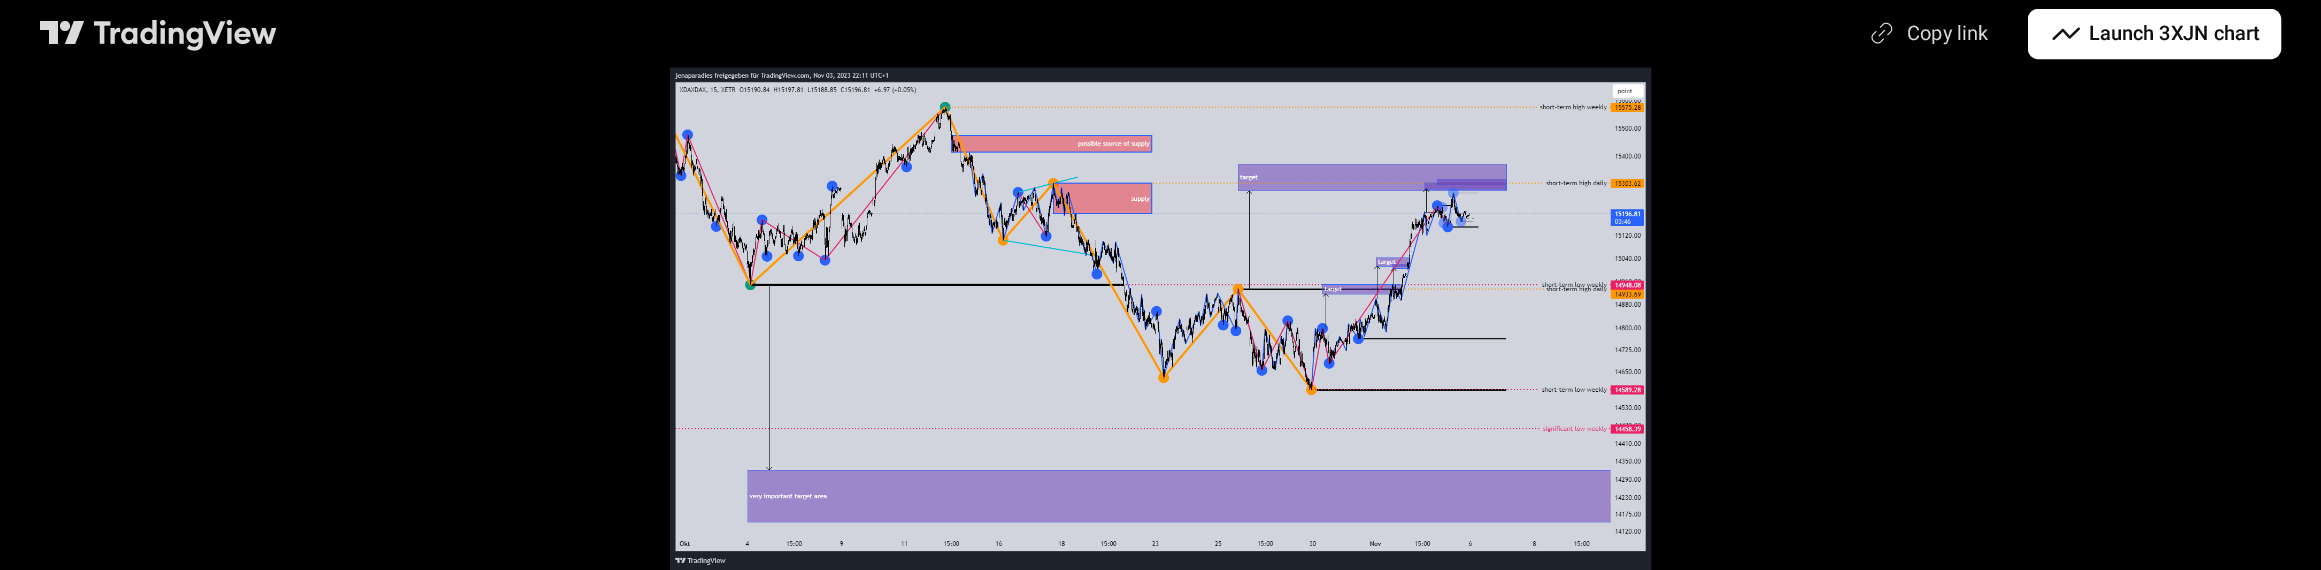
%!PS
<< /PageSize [2321 570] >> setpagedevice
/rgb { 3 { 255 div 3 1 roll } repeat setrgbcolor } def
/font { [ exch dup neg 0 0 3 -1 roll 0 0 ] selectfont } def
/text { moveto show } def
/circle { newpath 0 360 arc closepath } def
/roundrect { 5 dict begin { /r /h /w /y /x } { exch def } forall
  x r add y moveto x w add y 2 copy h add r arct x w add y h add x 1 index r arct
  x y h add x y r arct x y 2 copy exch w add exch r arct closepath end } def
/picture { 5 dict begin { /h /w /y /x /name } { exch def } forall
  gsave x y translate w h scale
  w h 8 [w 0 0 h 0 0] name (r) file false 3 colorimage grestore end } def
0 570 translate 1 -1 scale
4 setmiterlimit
0 0 0 rgb
0 0 2321 570 rectfill
219 219 219 rgb
58 44 moveto -9 0 rlineto 0 -14 rlineto -9 0 rlineto 0 -9 rlineto 18 0 rlineto closepath 75 44 moveto -10 0 rlineto 9 -23 rlineto 10 0 rlineto closepath fill
65 26 5 circle fill
(img_01.rgb) 94 19 183 32 picture
(img_02.rgb) 1871 22 22 22 picture
255 255 255 rgb
2028.5 9.5 252 49 9.5 roundrect gsave fill grestore
stroke
(img_03.rgb) 2052 27 28 13 picture
(img_04.rgb) 670 67 982 503 picture
/Roboto-Regular 20 font
219 219 219 rgb
(Copy link) 1907 40 text
/Roboto-Medium 20 font
15 15 15 rgb
(Launch 3XJN chart) 2089 40 text
showpage
